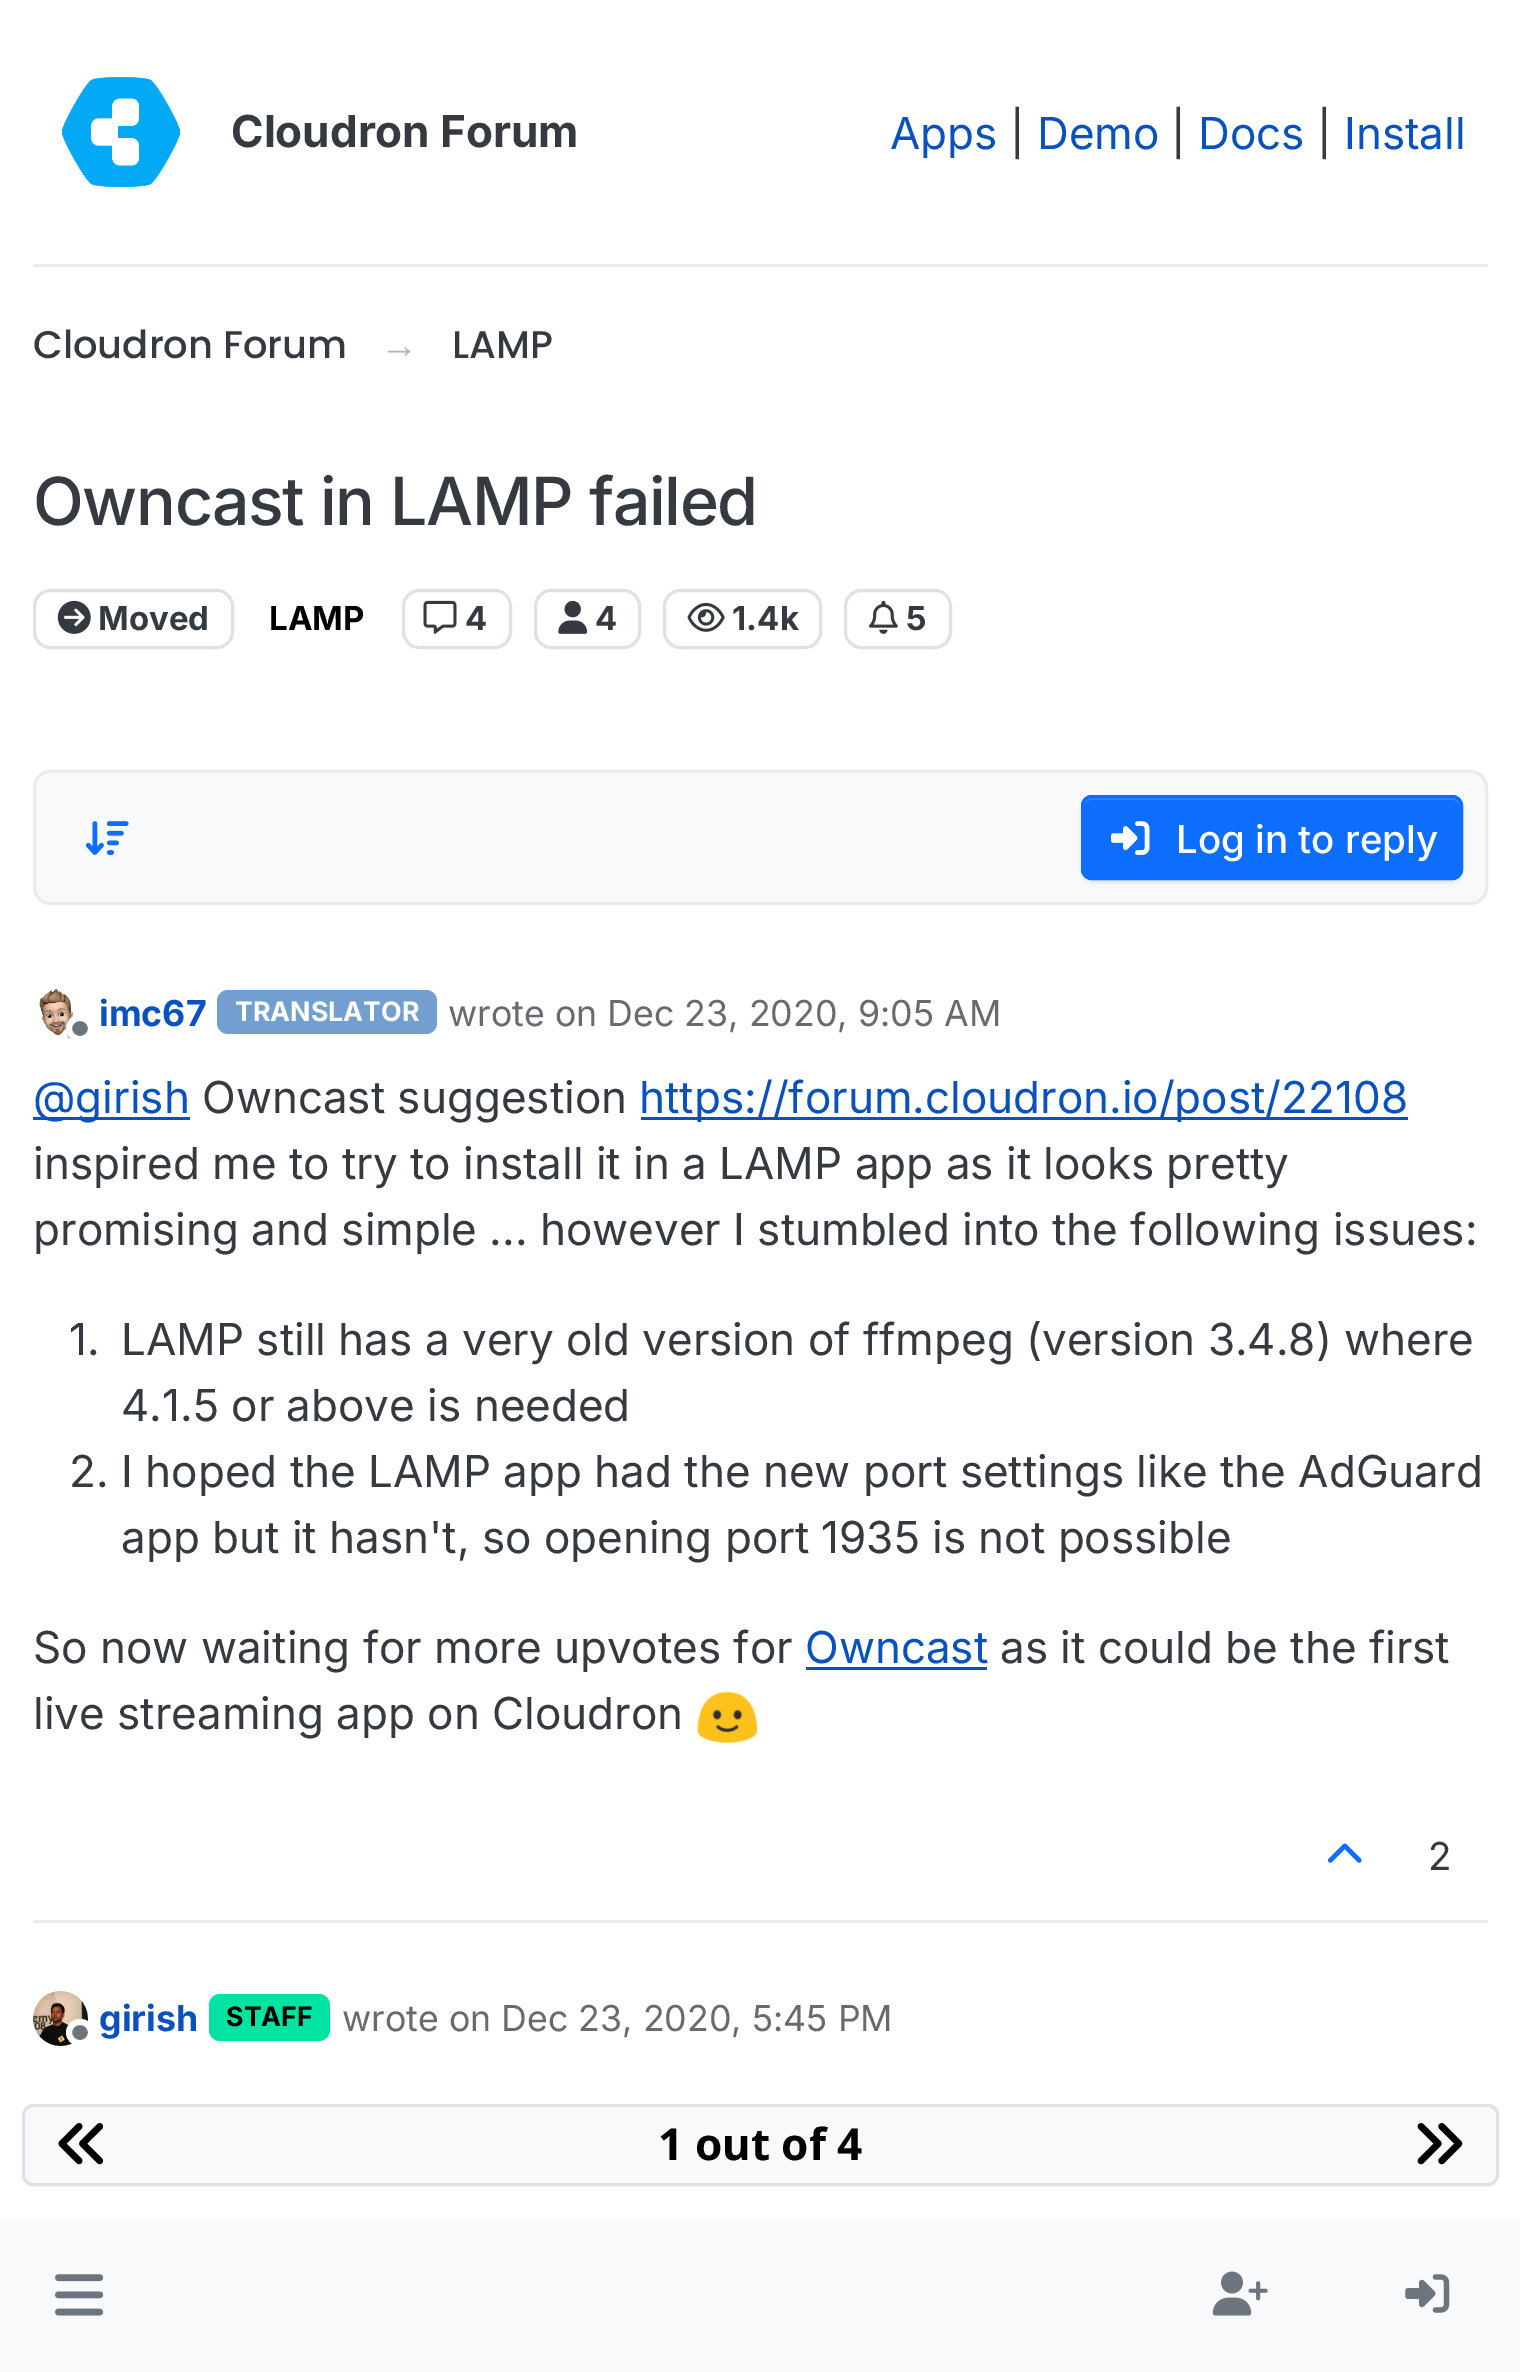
%!PS
<< /PageSize [1520 2372] /PageUsesTransparency true >> setpagedevice
/rgb { 3 { 255 div 3 1 roll } repeat setrgbcolor } def
/font { [ exch dup neg 0 0 3 -1 roll 0 0 ] selectfont } def
/text { moveto show } def
/alpha { dup .setfillconstantalpha .setstrokeconstantalpha } def
/roundrect { 5 dict begin { /r /h /w /y /x } { exch def } forall
  x r add y moveto x w add y 2 copy h add r arct x w add y h add x 1 index r arct
  x y h add x y r arct x y 2 copy exch w add exch r arct closepath end } def
/shadow { 12 dict begin { /a /b /q /h /w /y /x } { exch def } forall gsave /was 0 def
  9 -2 -9 { dup b mul 4 div /e exch def 1 sub .425 mul 2.718 exch exp 1 add a .99 .min exch div /now exch def
    1 1 now sub 1 was sub div sub alpha /was now def
    w h .min e 2 mul add 0 gt { x e sub y e sub w e 2 mul add h e 2 mul add
      q e add b .6 mul add w h .min 2 div e add .min 0 .max roundrect fill } if } for grestore end } def
/picture { 5 dict begin { /h /w /y /x /name } { exch def } forall
  gsave x y translate w h scale
  w h 8 [w 0 0 h 0 0] name (r) file false 3 colorimage grestore end } def
0 .pushpdf14devicefilter
0 2372 translate 1 -1 scale
4 setmiterlimit
255 255 255 rgb
0 0 1520 2372 rectfill
233 236 239 rgb
33 264 1455 3 rectfill
(img_01.rgb) 61 77 120 110 picture
222 226 230 rgb
3 setlinewidth
34.5 590.5 198 57 15.5 roundrect stroke
(img_02.rgb) 57 600 34 34 picture
403.5 590.5 107 57 15.5 roundrect stroke
(img_03.rgb) 423 600 34 34 picture
535.5 590.5 104 57 15.5 roundrect stroke
(img_04.rgb) 558 600 30 34 picture
664.5 590.5 156 57 15.5 roundrect stroke
(img_05.rgb) 687 602 38 30 picture
845.5 590.5 105 57 15.5 roundrect stroke
(img_06.rgb) 869 600 29 34 picture
248 249 250 rgb
34.5 771.5 1452 132 15.5 roundrect gsave fill grestore
233 236 239 rgb
stroke
(img_07.rgb) 85 821 44 34 picture
0 0 0 rgb
1081 798 382 85 11 1.5 0.07 shadow
13 110 253 rgb
1081 795 382 85 11 roundrect fill
49 132 253 rgb
1092 800 moveto 360 0 rlineto 5 0 8 4 8 8 rcurveto 0 -5 -2 -10 -8 -10 rcurveto -362 0 rlineto -5 1 -6 6 -6 10 rcurveto 0 -4 3 -8 8 -8 rcurveto closepath fill
13 110 253 rgb
1082.5 796.5 379 82 9.5 roundrect stroke
(img_08.rgb) 1111 821 39 34 picture
(img_09.rgb) 39 988 35 52 picture
108 117 125 rgb
69 1018 22 21 10.5 roundrect gsave fill grestore
255 255 255 rgb
6 setlinewidth
stroke
114 159 207 rgb
217 990 220 44 11 roundrect fill
9 81 190 rgb
33 1117 157 3 rectfill
641 1117 767 3 rectfill
806 1667 181 3 rectfill
(img_10.rgb) 696 1691 62 53 picture
233 236 239 rgb
33 1920 1455 3 rectfill
(img_11.rgb) 1327 1843 35 20 picture
(img_12.rgb) 33 1991 55 55 picture
108 117 125 rgb
69 2022 22 21 10.5 roundrect gsave fill grestore
255 255 255 rgb
stroke
0 227 163 rgb
209 1994 121 47 11 roundrect fill
248 249 250 rgb
23.5 2105.5 1474 79 9.5 roundrect gsave fill grestore
222 226 230 rgb
3 setlinewidth
stroke
(img_13.rgb) 58 2123 46 42 picture
(img_14.rgb) 1417 2123 46 42 picture
248 249 250 rgb
0 2219 1520 153 rectfill
(img_15.rgb) 55 2274 49 42 picture
(img_16.rgb) 1212 2271 56 45 picture
(img_17.rgb) 1405 2274 45 39 picture
/Inter-Bold 44 font
52 58 64 rgb
(Cloudron Forum) 231 147 text
/Inter-Regular 44 font
9 81 190 rgb
(Apps) 890 149 text
52 58 64 rgb
(|) 1010 149 text
9 81 190 rgb
(Demo) 1037 149 text
52 58 64 rgb
(|) 1171 149 text
9 81 190 rgb
(Docs) 1198 149 text
52 58 64 rgb
(|) 1317 149 text
9 81 190 rgb
(Install) 1344 149 text
/Poppins-Medium 38.5 font
52 58 64 rgb
(Cloudron Forum) 33 358 text
/LiberationSans-Regular 38.5 font
173 181 189 rgb
(→) 380 358 text
/Poppins-Medium 38.5 font
52 58 64 rgb
(LAMP) 452 358 text
/Inter-Medium 66.25 font
33 525 moveto -1.3 0 (Owncast in LAMP failed) ashow
/Inter-Bold 33 font
(Moved) 98 630 text
0 0 0 rgb
(LAMP) 269 630 text
52 58 64 rgb
(4) 465 630 text
(4) 595 630 text
(1.4k) 732 630 text
(5) 906 630 text
/Inter-Medium 38.5 font
255 255 255 rgb
(Log in to reply) 1176 853 text
/Inter-Bold 35.75 font
9 81 190 rgb
(imc67) 99 1026 text
/Inter-Bold 26.75 font
255 255 255 rgb
(TRANSLATOR) 235 1021 text
/Inter-Regular 35.75 font
103 107 112 rgb
(wrote on Dec 23, 2020, 9:05 AM) 448 1026 text
/Inter-Regular 44 font
9 81 190 rgb
(@girish) 33 1113 text
52 58 64 rgb
(Owncast suggestion) 202 1113 text
9 81 190 rgb
(https://forum.cloudron.io/post/22108) 639 1113 text
52 58 64 rgb
(inspired me to try to install it in a LAMP app as it looks pretty) 33 1179 text
(promising and simple ... however I stumbled into the following issues:) 33 1245 text
(1.) 69 1355 text
(LAMP still has a very old version of ffmpeg \(version 3.4.8\) where) 121 1355 text
(4.1.5 or above is needed) 121 1421 text
(2.) 69 1487 text
(I hoped the LAMP app had the new port settings like the AdGuard) 121 1487 text
(app but it hasn't, so opening port 1935 is not possible) 121 1553 text
(So now waiting for more upvotes for) 33 1663 text
9 81 190 rgb
(Owncast) 805 1663 text
52 58 64 rgb
(as it could be the first) 1000 1663 text
(live streaming app on Cloudron) 33 1729 text
/Inter-Regular 38.5 font
(2) 1428 1870 text
/Inter-Bold 35.75 font
9 81 190 rgb
(girish) 99 2031 text
/Inter-Bold 26.75 font
0 0 0 rgb
(STAFF) 226 2026 text
/Inter-Regular 35.75 font
103 107 112 rgb
(wrote on Dec 23, 2020, 5:45 PM) 342 2031 text
/NotoSans-Bold 44 font
0 0 0 rgb
(1 out of 4) 658 2160 text
.poppdf14devicefilter showpage
